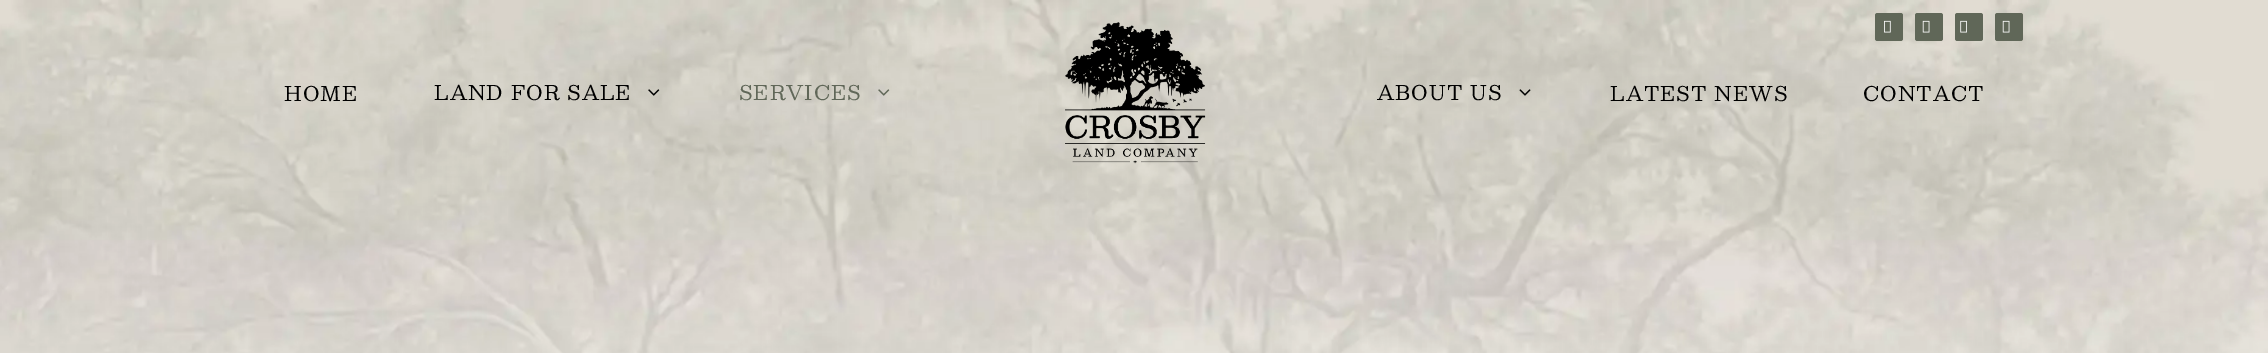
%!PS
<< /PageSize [2268 353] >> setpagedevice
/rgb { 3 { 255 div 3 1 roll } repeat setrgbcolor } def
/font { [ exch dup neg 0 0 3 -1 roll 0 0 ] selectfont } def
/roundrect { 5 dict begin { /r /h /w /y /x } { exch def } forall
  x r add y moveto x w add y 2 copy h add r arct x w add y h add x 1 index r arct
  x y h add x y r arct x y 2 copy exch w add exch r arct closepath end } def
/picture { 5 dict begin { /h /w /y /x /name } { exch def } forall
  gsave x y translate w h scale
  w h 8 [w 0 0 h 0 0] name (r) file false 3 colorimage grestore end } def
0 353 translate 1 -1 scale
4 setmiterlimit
255 255 255 rgb
0 0 2268 353 rectfill
(img_01.rgb) 0 0 2268 353 picture
96 103 88 rgb
1875 13 28 28 2.5 roundrect fill
(img_02.rgb) 1884 20 7 13 picture
1915 13 28 28 2.5 roundrect fill
(img_03.rgb) 1922 20 8 13 picture
1955 13 28 28 2.5 roundrect fill
(img_04.rgb) 1960 20 7 13 picture
1995 13 28 28 2.5 roundrect fill
(img_03.rgb) 2002 20 8 13 picture
(img_05.rgb) 1065 22 141 142 picture
(img_06.rgb) 648 89 12 7 picture
(img_07.rgb) 878 89 12 7 picture
(img_08.rgb) 1519 89 12 7 picture
/Besley-Regular 20 font
0 0 0 rgb
284 101 moveto 1 0 (HOME) ashow
434 100 moveto 1 0 (LAND FOR SALE) ashow
96 103 88 rgb
739 100 moveto 1 0 (SERVICES) ashow
0 0 0 rgb
1377 100 moveto 1 0 (ABOUT US) ashow
1610 101 moveto 1 0 (LATEST NEWS) ashow
1863 101 moveto 1 0 (CONTACT) ashow
showpage
